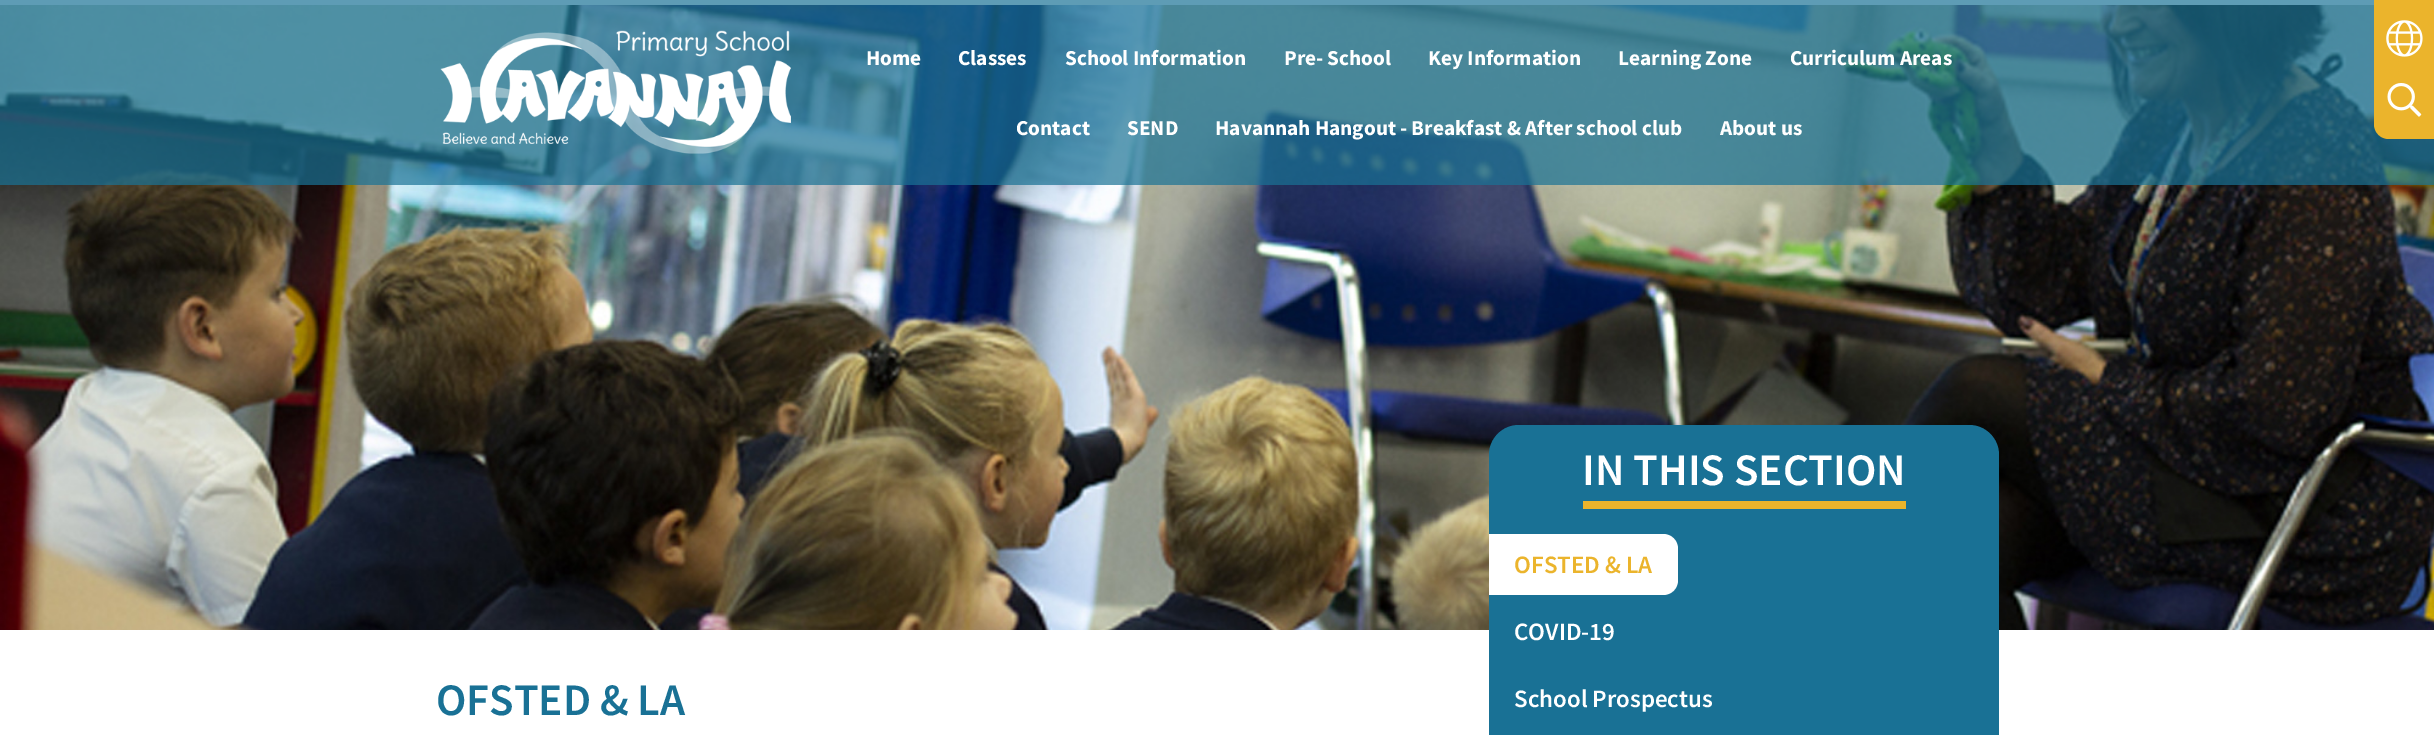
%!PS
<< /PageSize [2434 735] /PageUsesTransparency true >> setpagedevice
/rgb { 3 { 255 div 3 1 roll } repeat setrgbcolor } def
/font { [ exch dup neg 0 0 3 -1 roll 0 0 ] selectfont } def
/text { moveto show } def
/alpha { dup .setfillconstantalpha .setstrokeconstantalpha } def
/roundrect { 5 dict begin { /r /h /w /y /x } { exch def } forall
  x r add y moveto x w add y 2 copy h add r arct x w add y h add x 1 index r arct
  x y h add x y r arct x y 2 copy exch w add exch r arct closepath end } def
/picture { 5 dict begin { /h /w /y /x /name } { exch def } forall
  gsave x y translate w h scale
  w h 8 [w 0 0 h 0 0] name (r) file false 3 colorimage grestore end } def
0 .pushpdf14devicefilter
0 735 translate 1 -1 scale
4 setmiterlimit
255 255 255 rgb
0 0 2434 735 rectfill
(img_01.rgb) 0 5 2434 625 picture
0.7 alpha
25 114 149 rgb
0 0 2434 185 rectfill
1 alpha
(img_02.rgb) 440 30 351 124 picture
235 180 44 rgb
2374 0 60 63 rectfill
(img_03.rgb) 2386 20 37 37 picture
2374 63 moveto 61 0 rlineto 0 76 rlineto -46 0 rlineto -8.5 0 -15 -6.5 -15 -15 rcurveto closepath fill
(img_04.rgb) 2387 83 35 34 picture
25 113 149 rgb
1489 425 510 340 30 roundrect fill
235 180 44 rgb
1583 501 323 8 rectfill
255 255 255 rgb
1489 534 moveto 174 0 rlineto 8.5 0 15 6.5 15 15 rcurveto 0 31 rlineto 0 8.5 -6.5 15 -15 15 rcurveto -174 0 rlineto closepath fill
/SourceSansPro-Bold 21.25 font
(Home) 866 65 text
(Classes) 958 65 text
(School Information) 1065 65 text
(Pre- School) 1284 65 text
(Key Information) 1428 65 text
(Learning Zone) 1618 65 text
(Curriculum Areas) 1790 65 text
(Contact) 1016 135 text
(SEND) 1127 135 text
(Havannah Hangout - Breakfast & After school club) 1215 135 text
(About us) 1720 135 text
/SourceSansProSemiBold-SemiBold 45 font
25 113 149 rgb
(OFSTED & LA) 436 715 text
255 255 255 rgb
(IN THIS SECTION) 1582 485 text
/SourceSansProSemiBold-SemiBold 25 font
235 180 44 rgb
(OFSTED & LA) 1514 573 text
255 255 255 rgb
(COVID-19) 1514 640 text
(School Prospectus) 1514 707 text
.poppdf14devicefilter showpage
